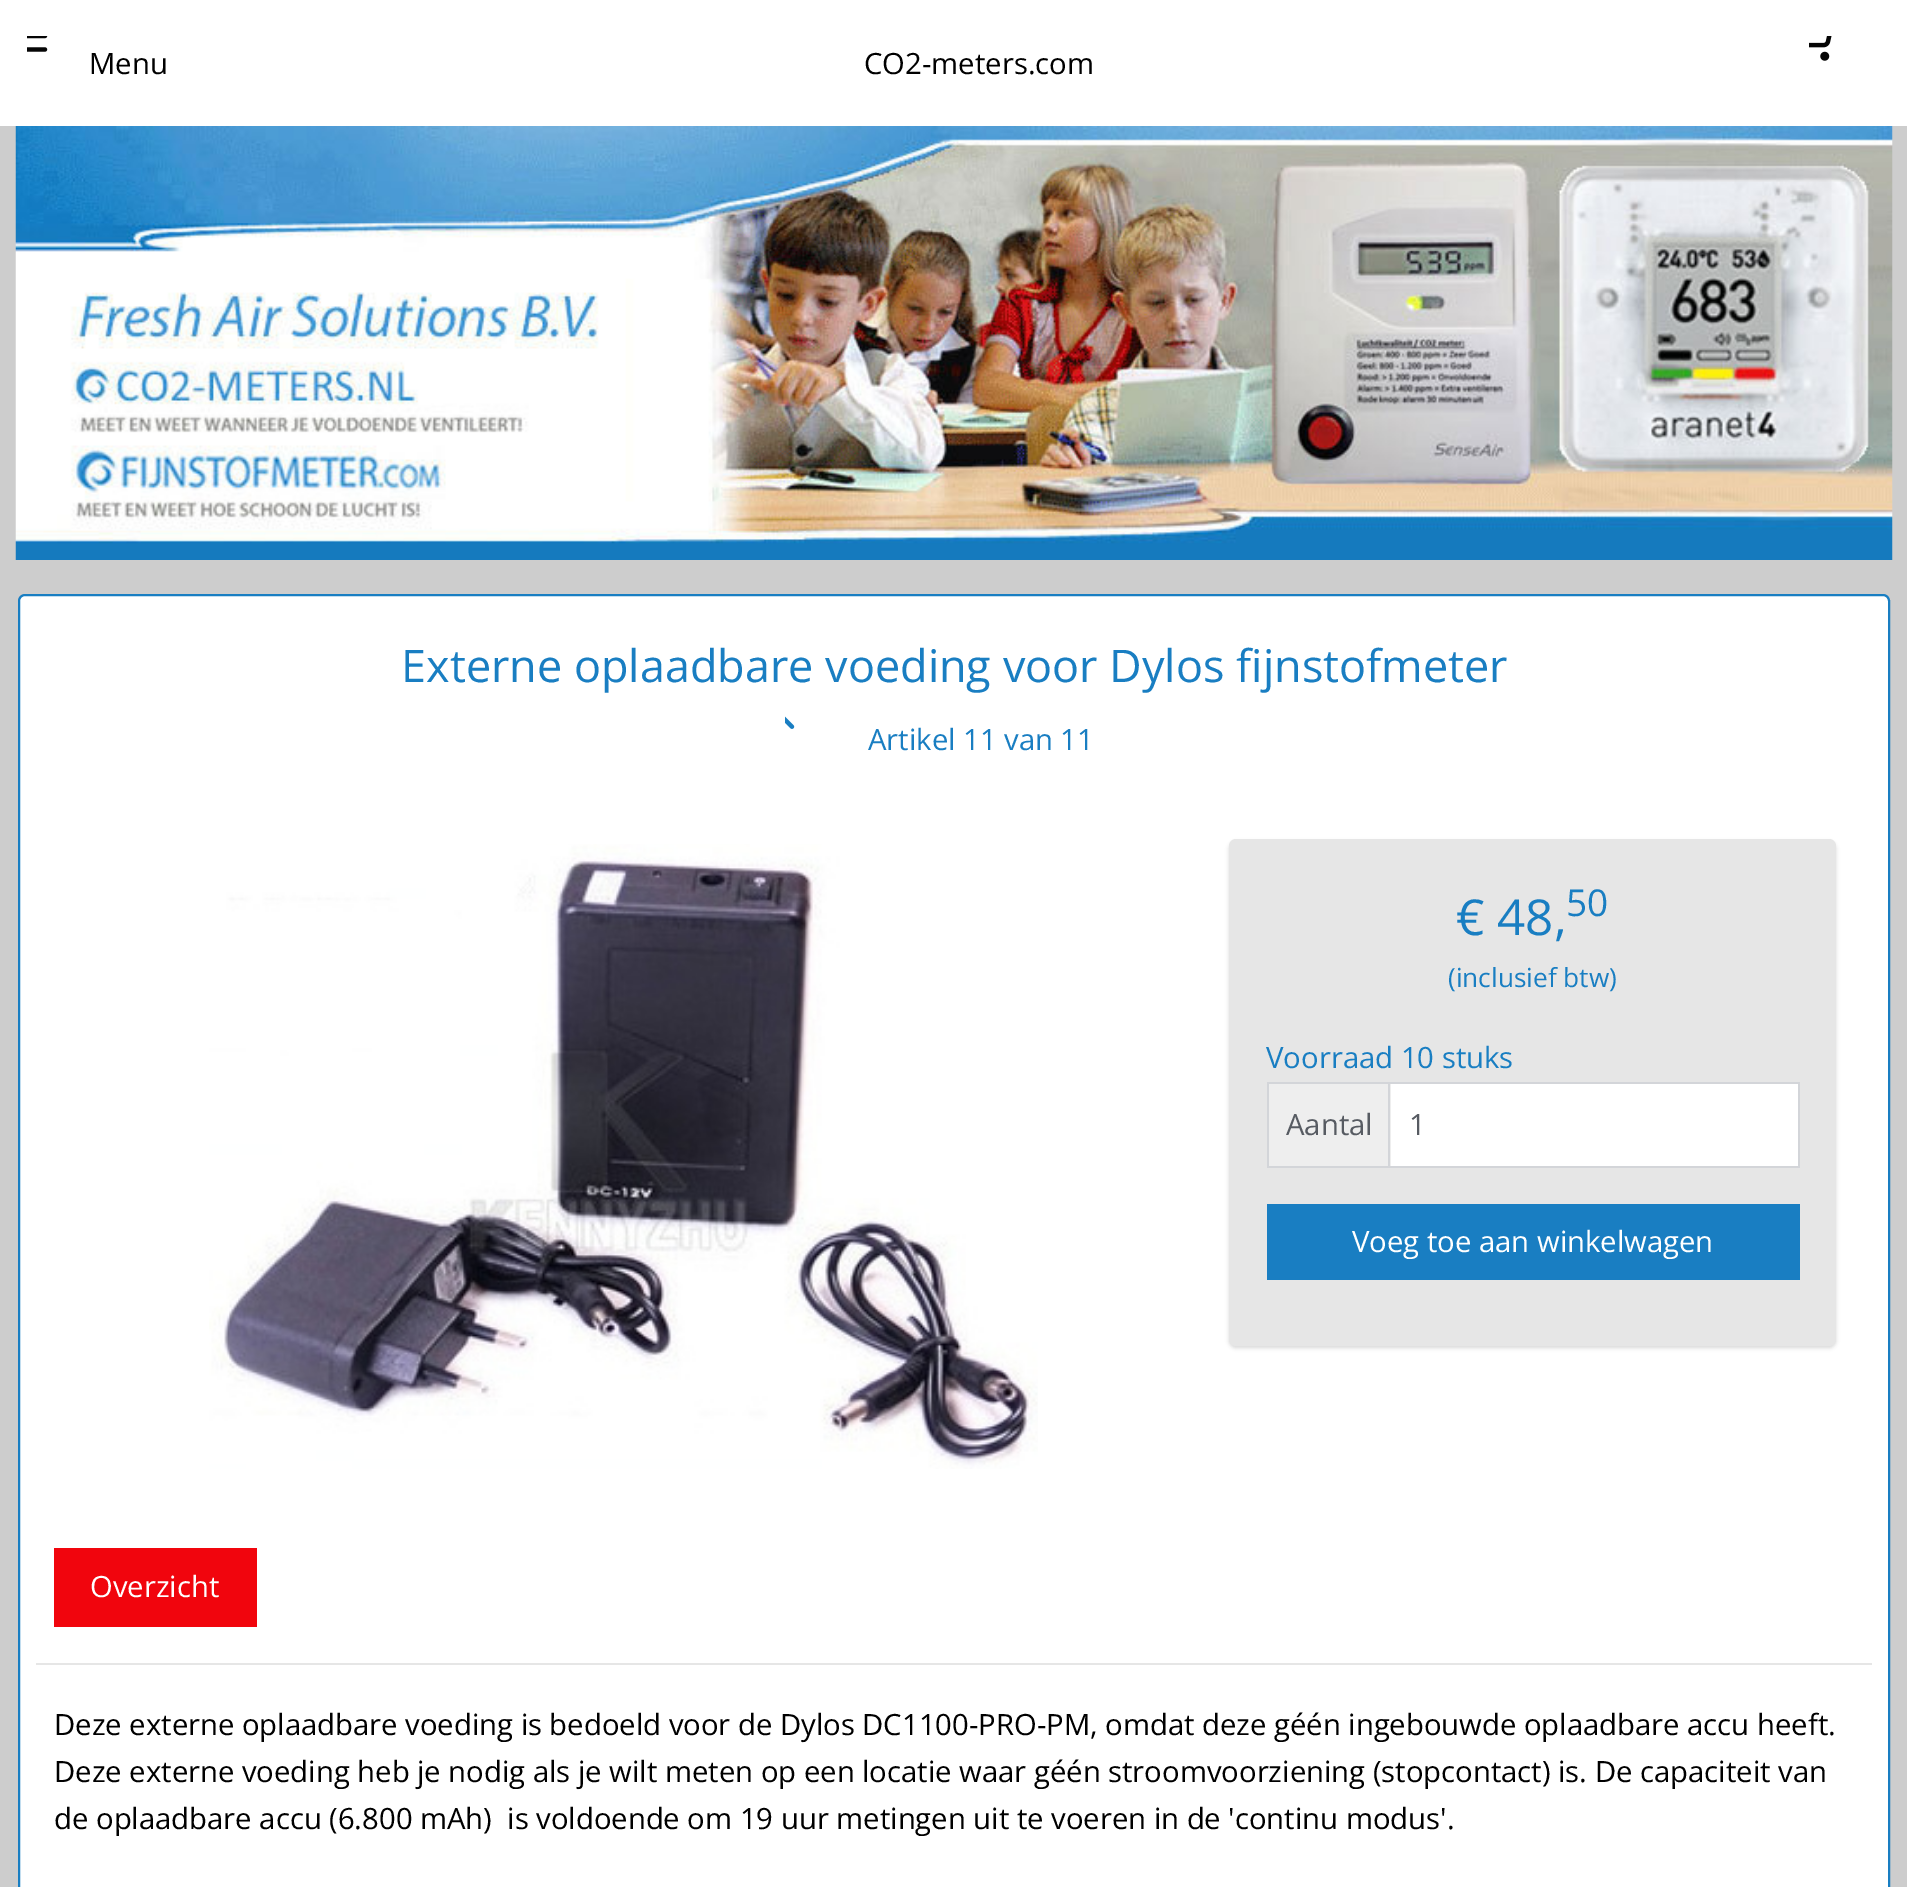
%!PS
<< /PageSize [1907 1887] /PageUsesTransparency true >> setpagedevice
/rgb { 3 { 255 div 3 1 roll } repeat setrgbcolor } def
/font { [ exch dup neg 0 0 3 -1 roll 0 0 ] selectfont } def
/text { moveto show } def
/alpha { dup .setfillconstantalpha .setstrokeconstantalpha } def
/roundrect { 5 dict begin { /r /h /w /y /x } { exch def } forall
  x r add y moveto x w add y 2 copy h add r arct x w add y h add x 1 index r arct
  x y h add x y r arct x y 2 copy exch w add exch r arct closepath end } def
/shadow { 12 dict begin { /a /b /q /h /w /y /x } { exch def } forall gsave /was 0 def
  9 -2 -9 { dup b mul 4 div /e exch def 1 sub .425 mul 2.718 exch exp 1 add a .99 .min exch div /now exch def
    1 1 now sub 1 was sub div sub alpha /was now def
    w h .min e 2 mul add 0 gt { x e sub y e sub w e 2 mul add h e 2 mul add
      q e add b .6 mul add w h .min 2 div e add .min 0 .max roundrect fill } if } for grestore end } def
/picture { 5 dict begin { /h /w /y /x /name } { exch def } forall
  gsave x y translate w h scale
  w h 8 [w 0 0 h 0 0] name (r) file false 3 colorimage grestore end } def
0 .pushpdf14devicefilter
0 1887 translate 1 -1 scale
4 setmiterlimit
205 205 205 rgb
0 0 1907 1887 rectfill
255 255 255 rgb
0 0 1907 126 rectfill
(img_01.rgb) 1809 36 23 25 picture
(img_02.rgb) 27 36 21 16 picture
(img_03.rgb) 15 126 1878 434 picture
19 595 1870 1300 6 roundrect gsave fill grestore
25 126 194 rgb
2 setlinewidth
stroke
(img_04.rgb) 785 716 10 13 picture
(img_05.rgb) 209 844 829 625 picture
0 0 0 rgb
1229 842 607 506 7 2 0.15 shadow
230 230 230 rgb
1229 839 607 507 7 roundrect fill
255 255 255 rgb
1391 1084 407 82 rectfill
238 238 238 rgb
1269 1084 122 82 rectfill
211 213 217 rgb
1388 1082 2 84 rectfill
1267 1082 533 2 rectfill
1798 1082 2 86 rectfill
1267 1166 533 2 rectfill
1267 1082 2 86 rectfill
25 126 194 rgb
1267 1204 533 76 rectfill
241 5 13 rgb
54 1548 203 79 rectfill
230 230 230 rgb
36 1663 1836 2 rectfill
/OpenSans-Regular 29.25 font
0 0 0 rgb
(Menu) 89 74 text
(CO2-meters.com) 864 74 text
/OpenSans-Regular 45 font
25 126 194 rgb
(Externe oplaadbare voeding voor Dylos fijnstofmeter) 401 682 text
/OpenSans-Regular 29.25 font
(Artikel 11 van 11) 868 750 text
/OpenSans-Regular 49.5 font
(€ 48,) 1456 935 text
/OpenSans-Regular 37 font
(50) 1566 916 text
/OpenSans-Regular 26.25 font
(\(inclusief btw\)) 1448 987 text
/OpenSans-Regular 29.25 font
(Voorraad 10 stuks) 1266 1068 text
87 91 98 rgb
(Aantal) 1286 1135 text
(1) 1409 1135 text
255 255 255 rgb
(Voeg toe aan winkelwagen) 1352 1252 text
(Overzicht) 90 1597 text
0 0 0 rgb
(Deze externe oplaadbare voeding is bedoeld voor de Dylos DC1100-PRO-PM, omdat deze géén ingebouwde oplaadbare accu heeft.) 54 1735 text
(Deze externe voeding heb je nodig als je wilt meten op een locatie waar géén stroomvoorziening \(stopcontact\) is. De capaciteit van) 54 1782 text
(de oplaadbare accu \(6.800 mAh\)  is voldoende om 19 uur metingen uit te voeren in de 'continu modus'.) 54 1829 text
.poppdf14devicefilter showpage
